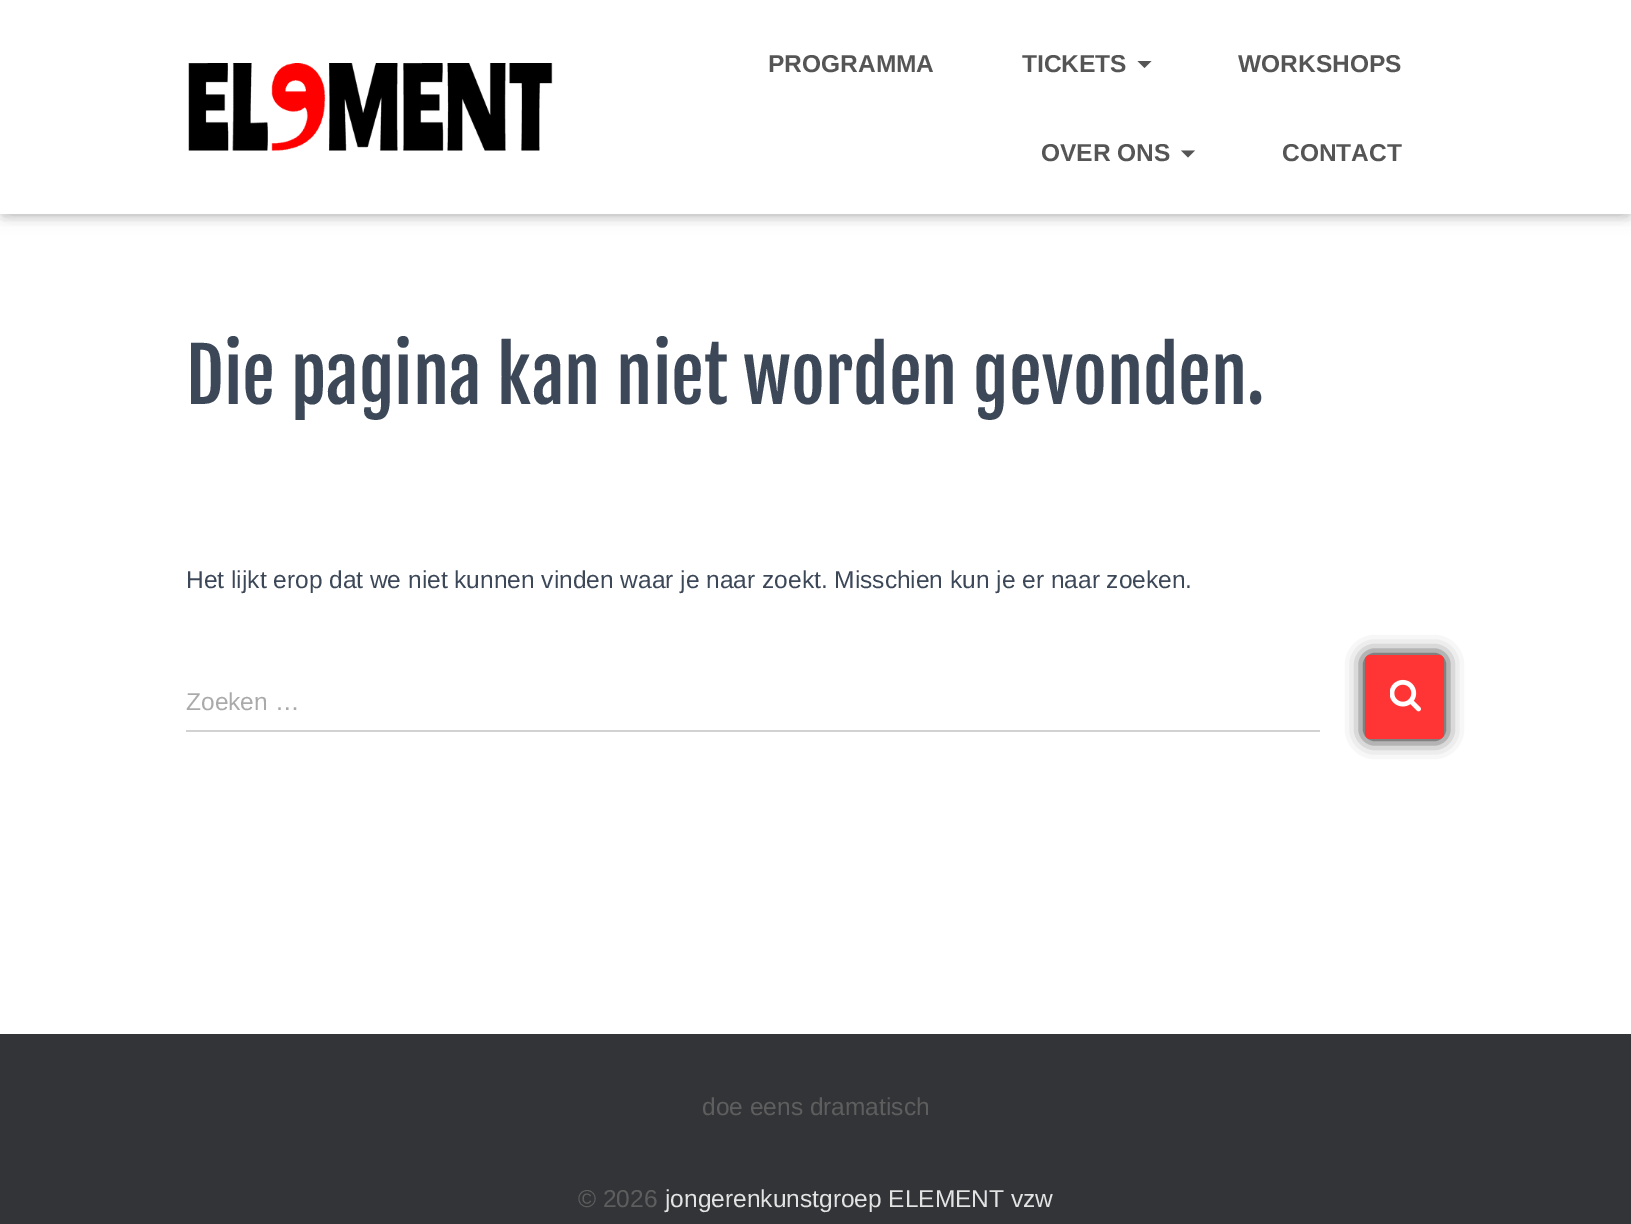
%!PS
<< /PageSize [1631 1224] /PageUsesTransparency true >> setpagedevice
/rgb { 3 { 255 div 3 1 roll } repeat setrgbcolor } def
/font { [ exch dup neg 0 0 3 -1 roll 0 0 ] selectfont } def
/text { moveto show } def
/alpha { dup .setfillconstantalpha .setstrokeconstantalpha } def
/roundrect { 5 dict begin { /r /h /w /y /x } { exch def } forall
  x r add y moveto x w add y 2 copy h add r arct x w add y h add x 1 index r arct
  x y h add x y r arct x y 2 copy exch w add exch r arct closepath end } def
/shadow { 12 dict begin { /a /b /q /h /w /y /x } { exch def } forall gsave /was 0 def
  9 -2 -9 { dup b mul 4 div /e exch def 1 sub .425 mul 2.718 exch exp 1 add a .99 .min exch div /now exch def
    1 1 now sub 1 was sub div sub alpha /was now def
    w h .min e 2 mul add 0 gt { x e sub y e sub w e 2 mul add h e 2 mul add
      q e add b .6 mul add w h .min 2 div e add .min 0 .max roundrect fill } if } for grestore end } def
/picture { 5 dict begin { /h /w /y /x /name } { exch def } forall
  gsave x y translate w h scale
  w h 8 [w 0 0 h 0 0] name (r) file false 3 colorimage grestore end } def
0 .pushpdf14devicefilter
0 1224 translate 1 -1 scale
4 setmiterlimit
255 255 255 rgb
0 0 1631 1224 rectfill
0 0 0 rgb
4 11 1624 206 0 4.5 0.1 shadow
0 2 1631 213 0 9 0.12 shadow
11 12 1610 193 0 9 0.42 shadow
255 255 255 rgb
0 0 1631 214 rectfill
(img_01.rgb) 188 63 365 88 picture
85 85 85 rgb
1137.5 61 moveto 14 0 rlineto -7 7 rlineto closepath fill
1181 150.5 moveto 14 0 rlineto -7 7 rlineto closepath fill
210 210 210 rgb
186 730 1134 2 rectfill
0 0 0 rgb
1365 655 79 84 5 9 1 shadow
255 53 53 rgb
1365 655 79 84 5 roundrect fill
(img_02.rgb) 1390 679 31 33 picture
50 52 55 rgb
0 1034 1631 190 rectfill
/LiberationSans-Bold 24.5 font
85 85 85 rgb
(PROGRAMMA) 768 72 text
(TICKETS) 1022 72 text
(WORKSHOPS) 1238 72 text
(OVER ONS) 1041 161 text
(CONTACT) 1282 161 text
/FjallaOne-Regular 73.5 font
60 72 88 rgb
(Die pagina kan niet worden gevonden.) 186 404 text
/LiberationSans-Regular 24.5 font
(Het lijkt erop dat we niet kunnen vinden waar je naar zoekt. Misschien kun je er naar zoeken.) 186 588 text
170 170 170 rgb
(Zoeken …) 186 710 text
94 94 94 rgb
(doe eens dramatisch) 702 1115 text
(© 2026) 578 1207 text
226 227 227 rgb
(jongerenkunstgroep ELEMENT vzw) 665 1207 text
.poppdf14devicefilter showpage
